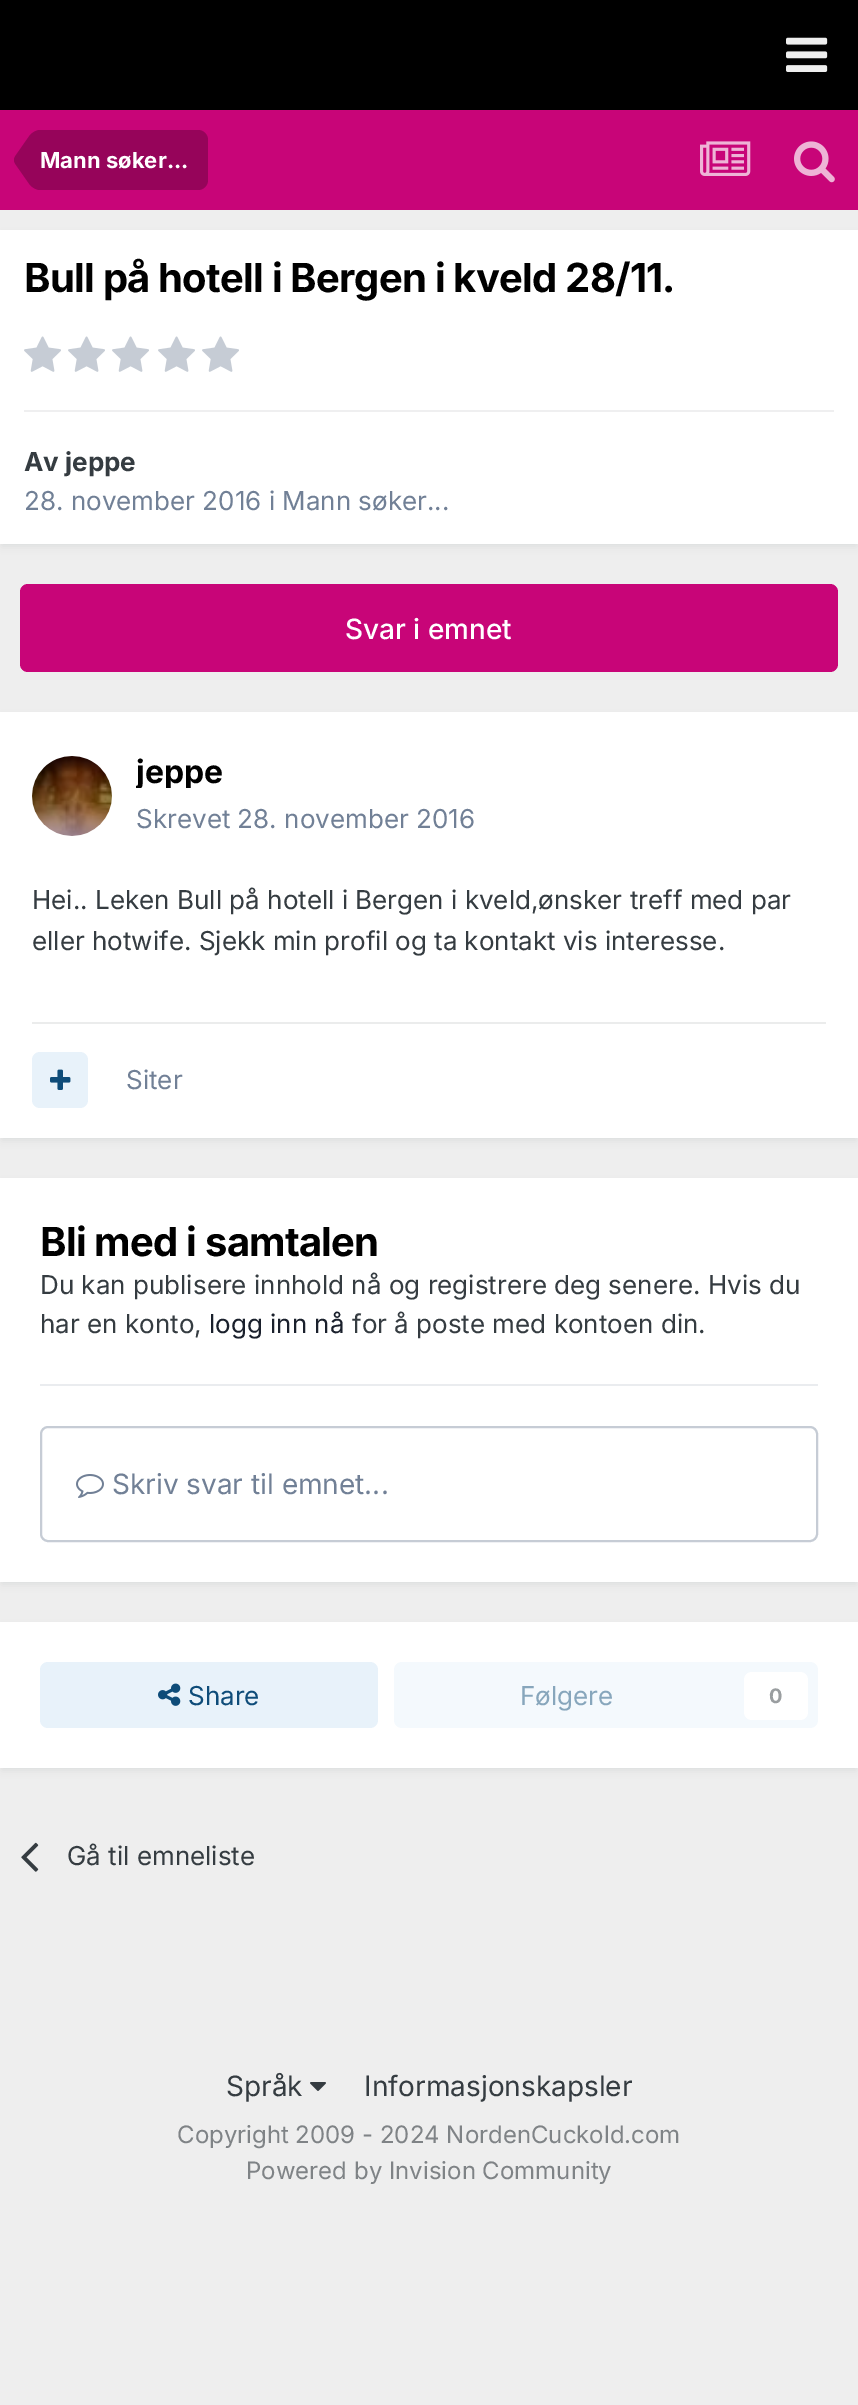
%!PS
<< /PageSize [858 2405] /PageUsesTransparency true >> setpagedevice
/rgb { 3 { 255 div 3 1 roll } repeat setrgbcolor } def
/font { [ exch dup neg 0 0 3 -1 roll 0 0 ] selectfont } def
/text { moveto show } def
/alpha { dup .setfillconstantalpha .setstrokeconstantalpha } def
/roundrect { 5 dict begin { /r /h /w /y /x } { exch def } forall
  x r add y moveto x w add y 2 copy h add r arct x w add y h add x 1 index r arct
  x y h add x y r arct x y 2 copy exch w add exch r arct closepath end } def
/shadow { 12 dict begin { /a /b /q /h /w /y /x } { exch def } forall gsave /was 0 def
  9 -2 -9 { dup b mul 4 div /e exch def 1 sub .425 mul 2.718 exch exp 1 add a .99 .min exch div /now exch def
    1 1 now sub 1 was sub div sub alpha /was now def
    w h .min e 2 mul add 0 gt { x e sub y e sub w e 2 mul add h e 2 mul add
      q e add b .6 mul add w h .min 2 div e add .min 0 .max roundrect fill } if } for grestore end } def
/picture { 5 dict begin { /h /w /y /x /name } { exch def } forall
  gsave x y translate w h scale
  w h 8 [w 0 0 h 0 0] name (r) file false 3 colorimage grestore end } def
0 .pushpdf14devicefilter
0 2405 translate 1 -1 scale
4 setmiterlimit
238 238 238 rgb
0 0 858 2405 rectfill
0 0 0 rgb
0 0 858 110 rectfill
(img_01.rgb) 786 37 42 35 picture
200 5 120 rgb
0 110 858 100 rectfill
150 4 90 rgb
40 130 moveto 158 0 rlineto 5.5 0 10 4.5 10 10 rcurveto 0 40 rlineto 0 5.5 -4.5 10 -10 10 rcurveto -158 0 rlineto closepath fill
40 160 moveto 0 30 rlineto -3.5 0 -7 -2 -10 -5 rcurveto -15 -21.5 rlineto -0.5 -1 -1 -2 -1 -3.5 rcurveto closepath 40 160 moveto -26 0 rlineto 0 -1.5 0.5 -2.5 1 -3.5 rcurveto 15 -21.5 rlineto 3 -3 6.5 -5 10 -5 rcurveto closepath fill
(img_02.rgb) 700 141 51 35 picture
(img_03.rgb) 794 141 41 42 picture
45 55 72 rgb
2 236 854 310 0 4 0.1 shadow
255 255 255 rgb
0 230 858 314 rectfill
(img_04.rgb) 24 336 37 36 picture
(img_04.rgb) 68 336 37 36 picture
(img_04.rgb) 112 336 37 36 picture
(img_04.rgb) 158 336 37 36 picture
(img_04.rgb) 202 336 37 36 picture
239 239 240 rgb
24 410 810 2 rectfill
200 5 120 rgb
20 584 818 88 8 roundrect fill
45 55 72 rgb
2 718 854 422 0 4 0.1 shadow
255 255 255 rgb
0 712 858 426 rectfill
(img_05.rgb) 32 756 80 80 picture
235 236 236 rgb
32 1022 794 2 rectfill
232 242 250 rgb
32 1052 56 56 8 roundrect fill
(img_06.rgb) 50 1069 21 21 picture
45 55 72 rgb
2 1184 854 400 0 4 0.1 shadow
255 255 255 rgb
0 1178 858 404 rectfill
234 236 239 rgb
40 1384 778 2 rectfill
198 204 213 rgb
2 setlinewidth
41 1427 776 114 7 roundrect stroke
(img_07.rgb) 76 1474 28 24 picture
45 55 72 rgb
2 1628 854 142 0 4 0.1 shadow
255 255 255 rgb
0 1622 858 146 rectfill
232 242 250 rgb
40 1662 338 66 8 roundrect fill
(img_08.rgb) 158 1683 23 23 picture
244 249 253 rgb
394 1662 424 66 8 roundrect fill
255 255 255 rgb
744 1672 64 48 8 roundrect fill
(img_09.rgb) 21 1842 18 30 picture
(img_10.rgb) 310 2082 16 9 picture
/Inter-Bold 22 font
(Mann søker...) 40 168 text
/Inter-Bold 40 font
0 0 0 rgb
24 292 moveto -0.8 0 (Bull på hotell i Bergen i kveld 28/11.) ashow
/Inter-Bold 26 font
53 60 65 rgb
(Av jeppe) 24 471 text
/Inter-Regular 26 font
113 128 150 rgb
(28. november 2016 i Mann søker...) 24 510 text
/Inter-Medium 28 font
255 255 255 rgb
(Svar i emnet) 345 639 text
gsave
136 752 88 36 rectclip
/Inter-Bold 32 font
0 0 0 rgb
(jeppe) 136 783 text
grestore
/Inter-Regular 26 font
113 128 150 rgb
(Skrevet 28. november 2016) 136 828 text
53 60 65 rgb
(Hei.. Leken Bull på hotell i Bergen i kveld,ønsker treff med par) 32 909 text
(eller hotwife. Sjekk min profil og ta kontakt vis interesse.) 32 950 text
113 128 150 rgb
(Siter) 126 1089 text
/Inter-Bold 40 font
0 0 0 rgb
40 1256 moveto -0.8 0 (Bli med i samtalen) ashow
/Inter-Regular 26 font
53 60 65 rgb
(Du kan publisere innhold nå og registrere deg senere. Hvis du) 40 1294 text
(har en konto,) 40 1333 text
26 32 44 rgb
(logg inn nå) 209 1333 text
53 60 65 rgb
(for å poste med kontoen din.) 352 1333 text
/Inter-Regular 28 font
113 128 150 rgb
(Skriv svar til emnet...) 112 1494 text
/Inter-Regular 26 font
14 76 121 rgb
(Share) 188 1705 text
135 166 188 rgb
(Følgere) 520 1705 text
/Inter-Bold 20 font
154 158 160 rgb
(0) 769 1703 text
/Inter-Regular 26 font
53 60 65 rgb
(Gå til emneliste) 67 1865 text
/Inter-Regular 28 font
(Språk) 226 2096 text
(Informasjonskapsler) 364 2096 text
/Inter-Regular 24 font
127 131 134 rgb
(Copyright 2009 - 2024 NordenCuckold.com) 177 2143 text
(Powered by Invision Community) 246 2179 text
.poppdf14devicefilter showpage
